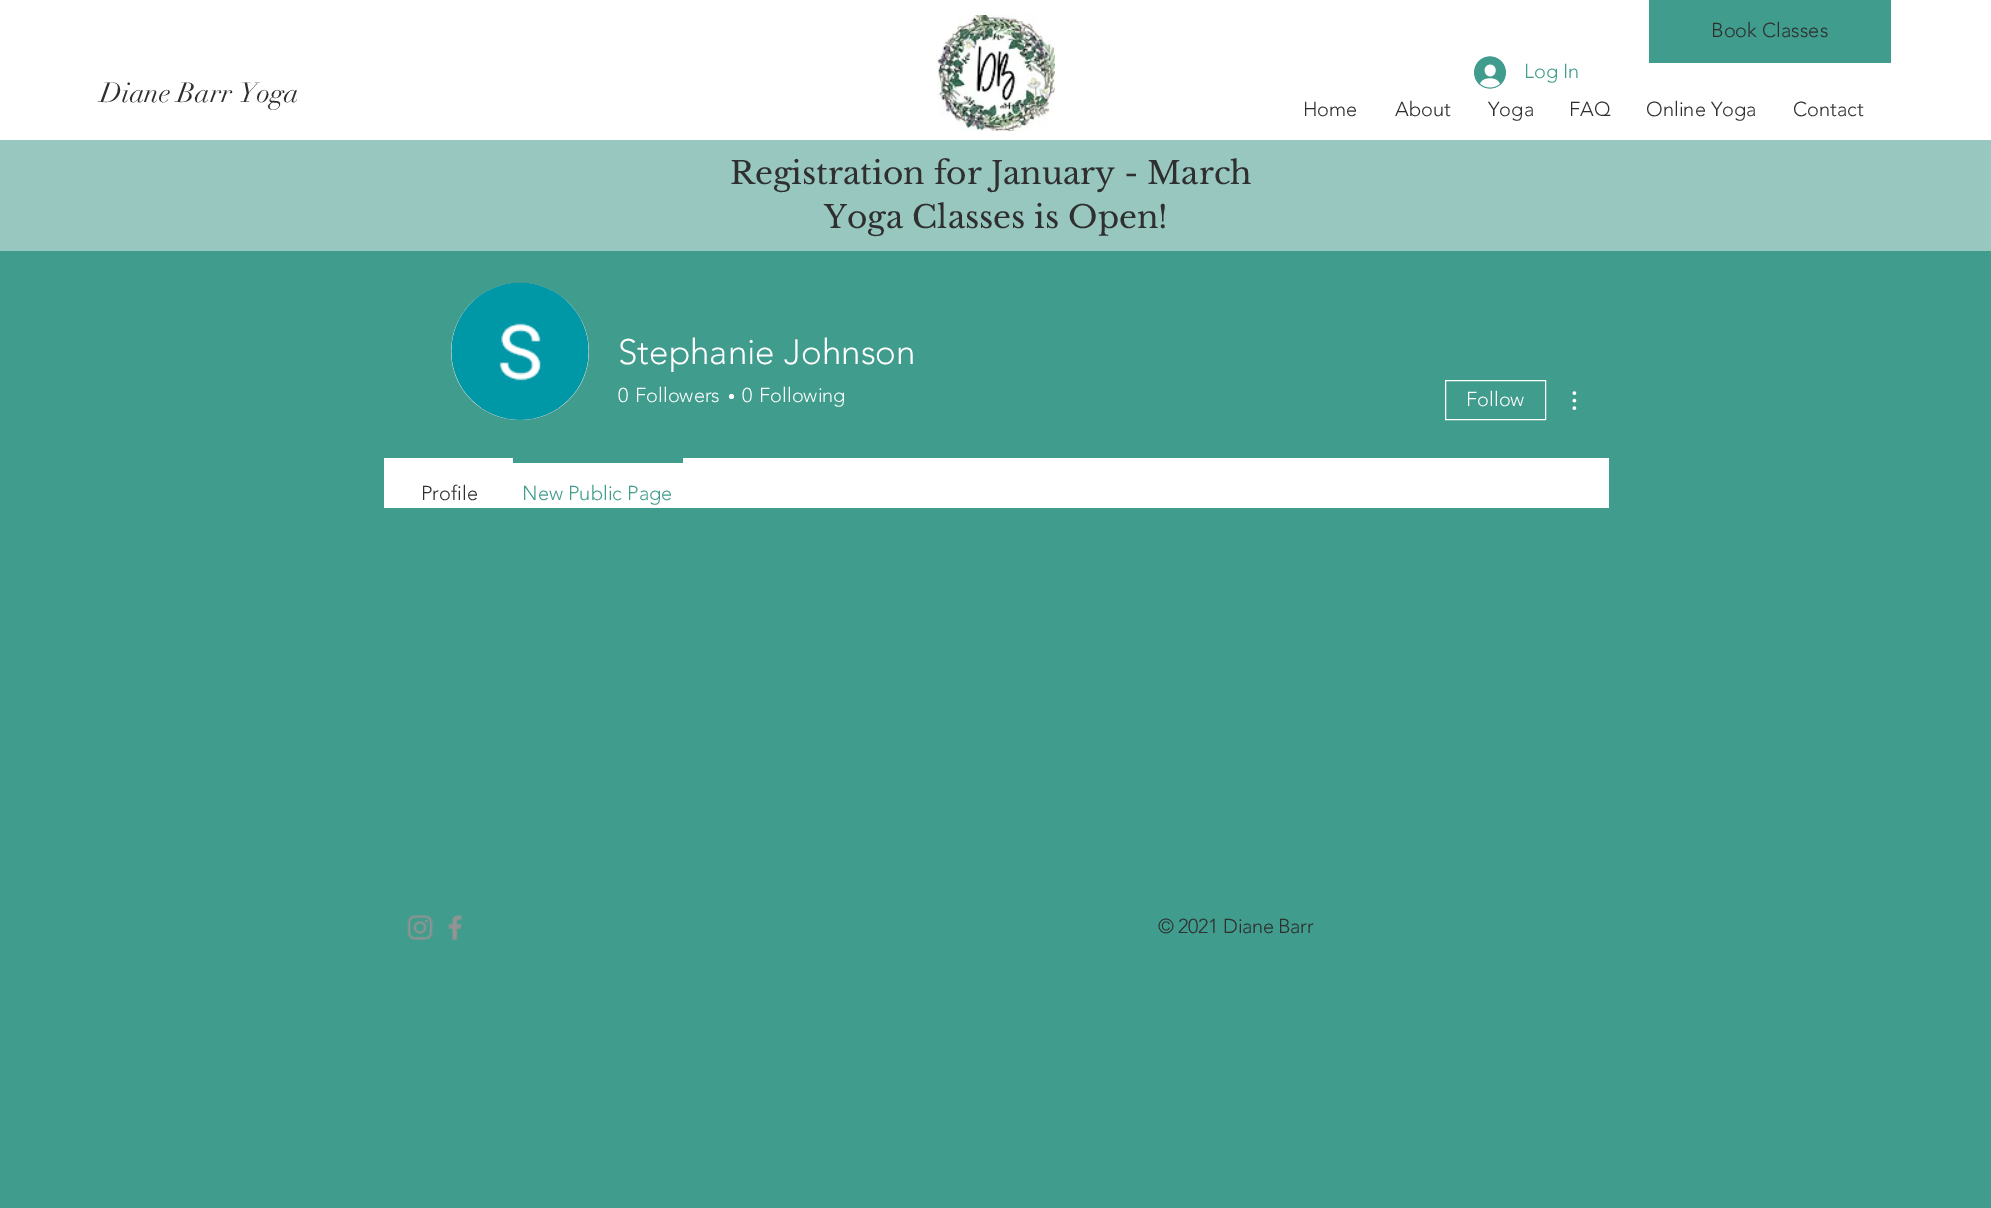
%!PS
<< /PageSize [1991 1208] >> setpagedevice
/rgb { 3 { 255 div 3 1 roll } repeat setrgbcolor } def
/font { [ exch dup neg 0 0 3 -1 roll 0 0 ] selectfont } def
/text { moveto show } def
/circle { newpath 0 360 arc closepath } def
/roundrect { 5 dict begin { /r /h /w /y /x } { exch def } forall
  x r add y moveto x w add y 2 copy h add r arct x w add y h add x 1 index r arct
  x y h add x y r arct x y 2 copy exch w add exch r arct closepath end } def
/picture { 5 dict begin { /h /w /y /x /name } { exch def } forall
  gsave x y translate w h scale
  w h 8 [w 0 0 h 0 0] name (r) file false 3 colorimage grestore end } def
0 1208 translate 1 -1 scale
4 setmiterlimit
64 156 140 rgb
0 0 1991 1208 rectfill
255 255 255 rgb
0 0 1991 140 rectfill
(img_01.rgb) 937 15 118 117 picture
(img_02.rgb) 1474 56 32 33 picture
151 199 191 rgb
0 140 1991 111 rectfill
64 156 140 rgb
1649 0 242 63 rectfill
216 216 216 rgb
451 283 138 137 68.5 roundrect fill
(img_03.rgb) 451 282 138 138 picture
255 255 255 rgb
731.5 396.5 2.5 circle fill
1445.5 380.5 100 39 rectstroke
(img_04.rgb) 1572 391 5 19 picture
384 458 1225 50 rectfill
64 156 140 rgb
513 458 170 5 rectfill
(img_05.rgb) 407 915 26 26 picture
(img_06.rgb) 447 915 16 26 picture
/didot-Regular 27.5 font
47 47 48 rgb
(Diane Barr Yoga) 100 102 text
/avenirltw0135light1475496-Light 20 font
64 156 140 rgb
(Log In) 1524 78 text
/LibreBaskerville-Regular 31.25 font
47 47 48 rgb
(Registration for January - March) 730 184 text
(Yoga Classes is Open!) 824 228 text
/avenirltw0135light1475496-Light 20 font
(Book Classes) 1711 37 text
(Home) 1303 116 text
(About) 1395 116 text
(Yoga) 1488 116 text
(FAQ) 1569 116 text
(Online Yoga) 1646 116 text
(Contact) 1793 116 text
/avenirltw0135light1475496-Light 35 font
255 255 255 rgb
(Stephanie Johnson) 618 364 text
/avenirltw0135light1475496-Light 20 font
(0) 618 402 text
(Followers) 635 402 text
(0) 742 402 text
(Following) 759 402 text
(Follow) 1466 406 text
47 47 48 rgb
(Profile) 421 500 text
64 156 140 rgb
(New Public Page) 522 500 text
47 47 48 rgb
1158 933 moveto -0.4 0 (© 2021 Diane Barr) ashow
showpage
